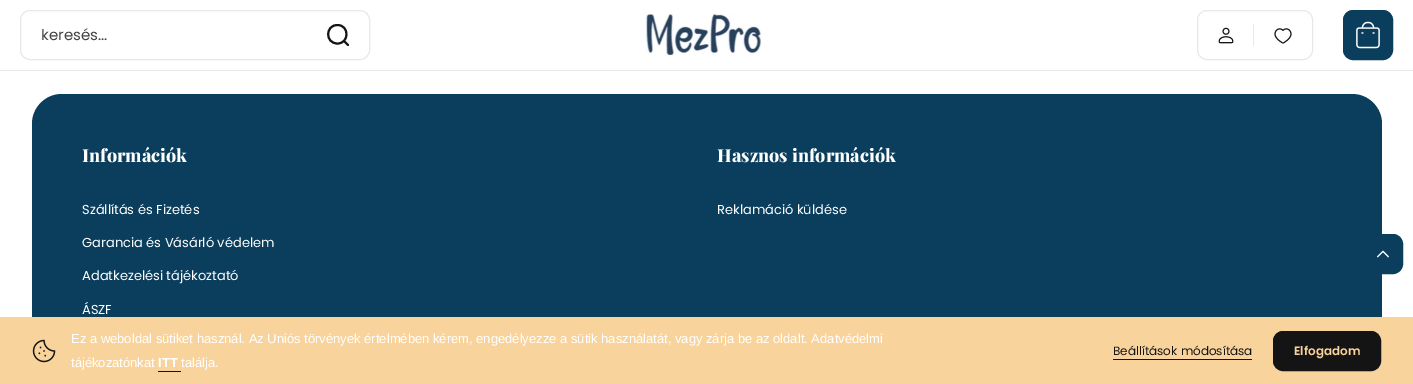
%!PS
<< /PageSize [1413 384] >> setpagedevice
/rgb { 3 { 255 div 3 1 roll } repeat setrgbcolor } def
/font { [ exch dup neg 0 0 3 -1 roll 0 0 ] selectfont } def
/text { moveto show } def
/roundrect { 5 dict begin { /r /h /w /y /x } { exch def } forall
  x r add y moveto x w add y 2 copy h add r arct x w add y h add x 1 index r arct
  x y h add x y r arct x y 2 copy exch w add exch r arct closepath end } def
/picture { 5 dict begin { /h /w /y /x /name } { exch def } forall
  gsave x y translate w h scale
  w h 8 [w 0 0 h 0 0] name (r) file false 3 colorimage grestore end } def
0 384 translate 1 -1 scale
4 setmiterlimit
255 255 255 rgb
0 0 1413 384 rectfill
232 232 232 rgb
0 70 1413 1 rectfill
20.5 10.5 349 49 9.5 roundrect stroke
20 20 20 rgb
2 setlinewidth
1 setlinecap
1 setlinejoin
348 45 moveto -4 -4 rlineto 337.5 43.5 moveto -12.5 0 -12.5 -18.5 0 -18.5 rcurveto 12 0 12 18.5 0 18.5 rcurveto closepath stroke
(img_01.rgb) 644 13 118 43 picture
232 232 232 rgb
1 setlinewidth
0 setlinecap
0 setlinejoin
1197.5 10.5 115 49 9.5 roundrect stroke
(img_02.rgb) 1218 27 16 17 picture
1253 24 1 22 rectfill
(img_03.rgb) 1274 28 18 16 picture
10 62 92 rgb
1343.5 10.5 49 49 9.5 roundrect gsave fill grestore
stroke
(img_04.rgb) 1356 21 24 28 picture
32 94 1350 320 30 roundrect fill
1363.5 234.5 39 39 9.5 roundrect gsave fill grestore
stroke
(img_05.rgb) 1377 250 12 8 picture
248 211 156 rgb
0 317 1413 67 rectfill
(img_06.rgb) 32 339 24 24 picture
20 20 20 rgb
158 371 23 1 rectfill
1113 359 139 1 rectfill
1273.5 331.5 107 39 9.5 roundrect gsave fill grestore
stroke
/Poppins-Regular 15 font
67 67 67 rgb
(keresés...) 41 40 text
/PlayfairDisplay-ExtraBold 18 font
255 255 255 rgb
(Információk) 82 162 text
/Poppins-Regular 13 font
(Szállítás és Fizetés) 82 214 text
(Garancia és Vásárló védelem) 82 247 text
(Adatkezelési tájékoztató) 82 280 text
(ÁSZF) 82 314 text
/PlayfairDisplay-ExtraBold 18 font
(Hasznos információk) 717 162 text
/Poppins-Regular 13 font
(Reklamáció küldése) 717 214 text
/LiberationSans-Regular 13 font
(Ez a weboldal sütiket használ. Az Uniós törvények értelmében kérem, engedélyezze a sütik használatát, vagy zárja be az oldalt. Adatvédelmi) 71 343 text
(tájékozatónkat) 71 367 text
/LiberationSans-Bold 13 font
(ITT) 158 367 text
/LiberationSans-Regular 13 font
(találja.) 181 367 text
/Poppins-Regular 12 font
20 20 20 rgb
(Beállítások módosítása) 1113 355 text
/Poppins-SemiBold 12 font
248 211 156 rgb
(Elfogadom) 1294 355 text
showpage
